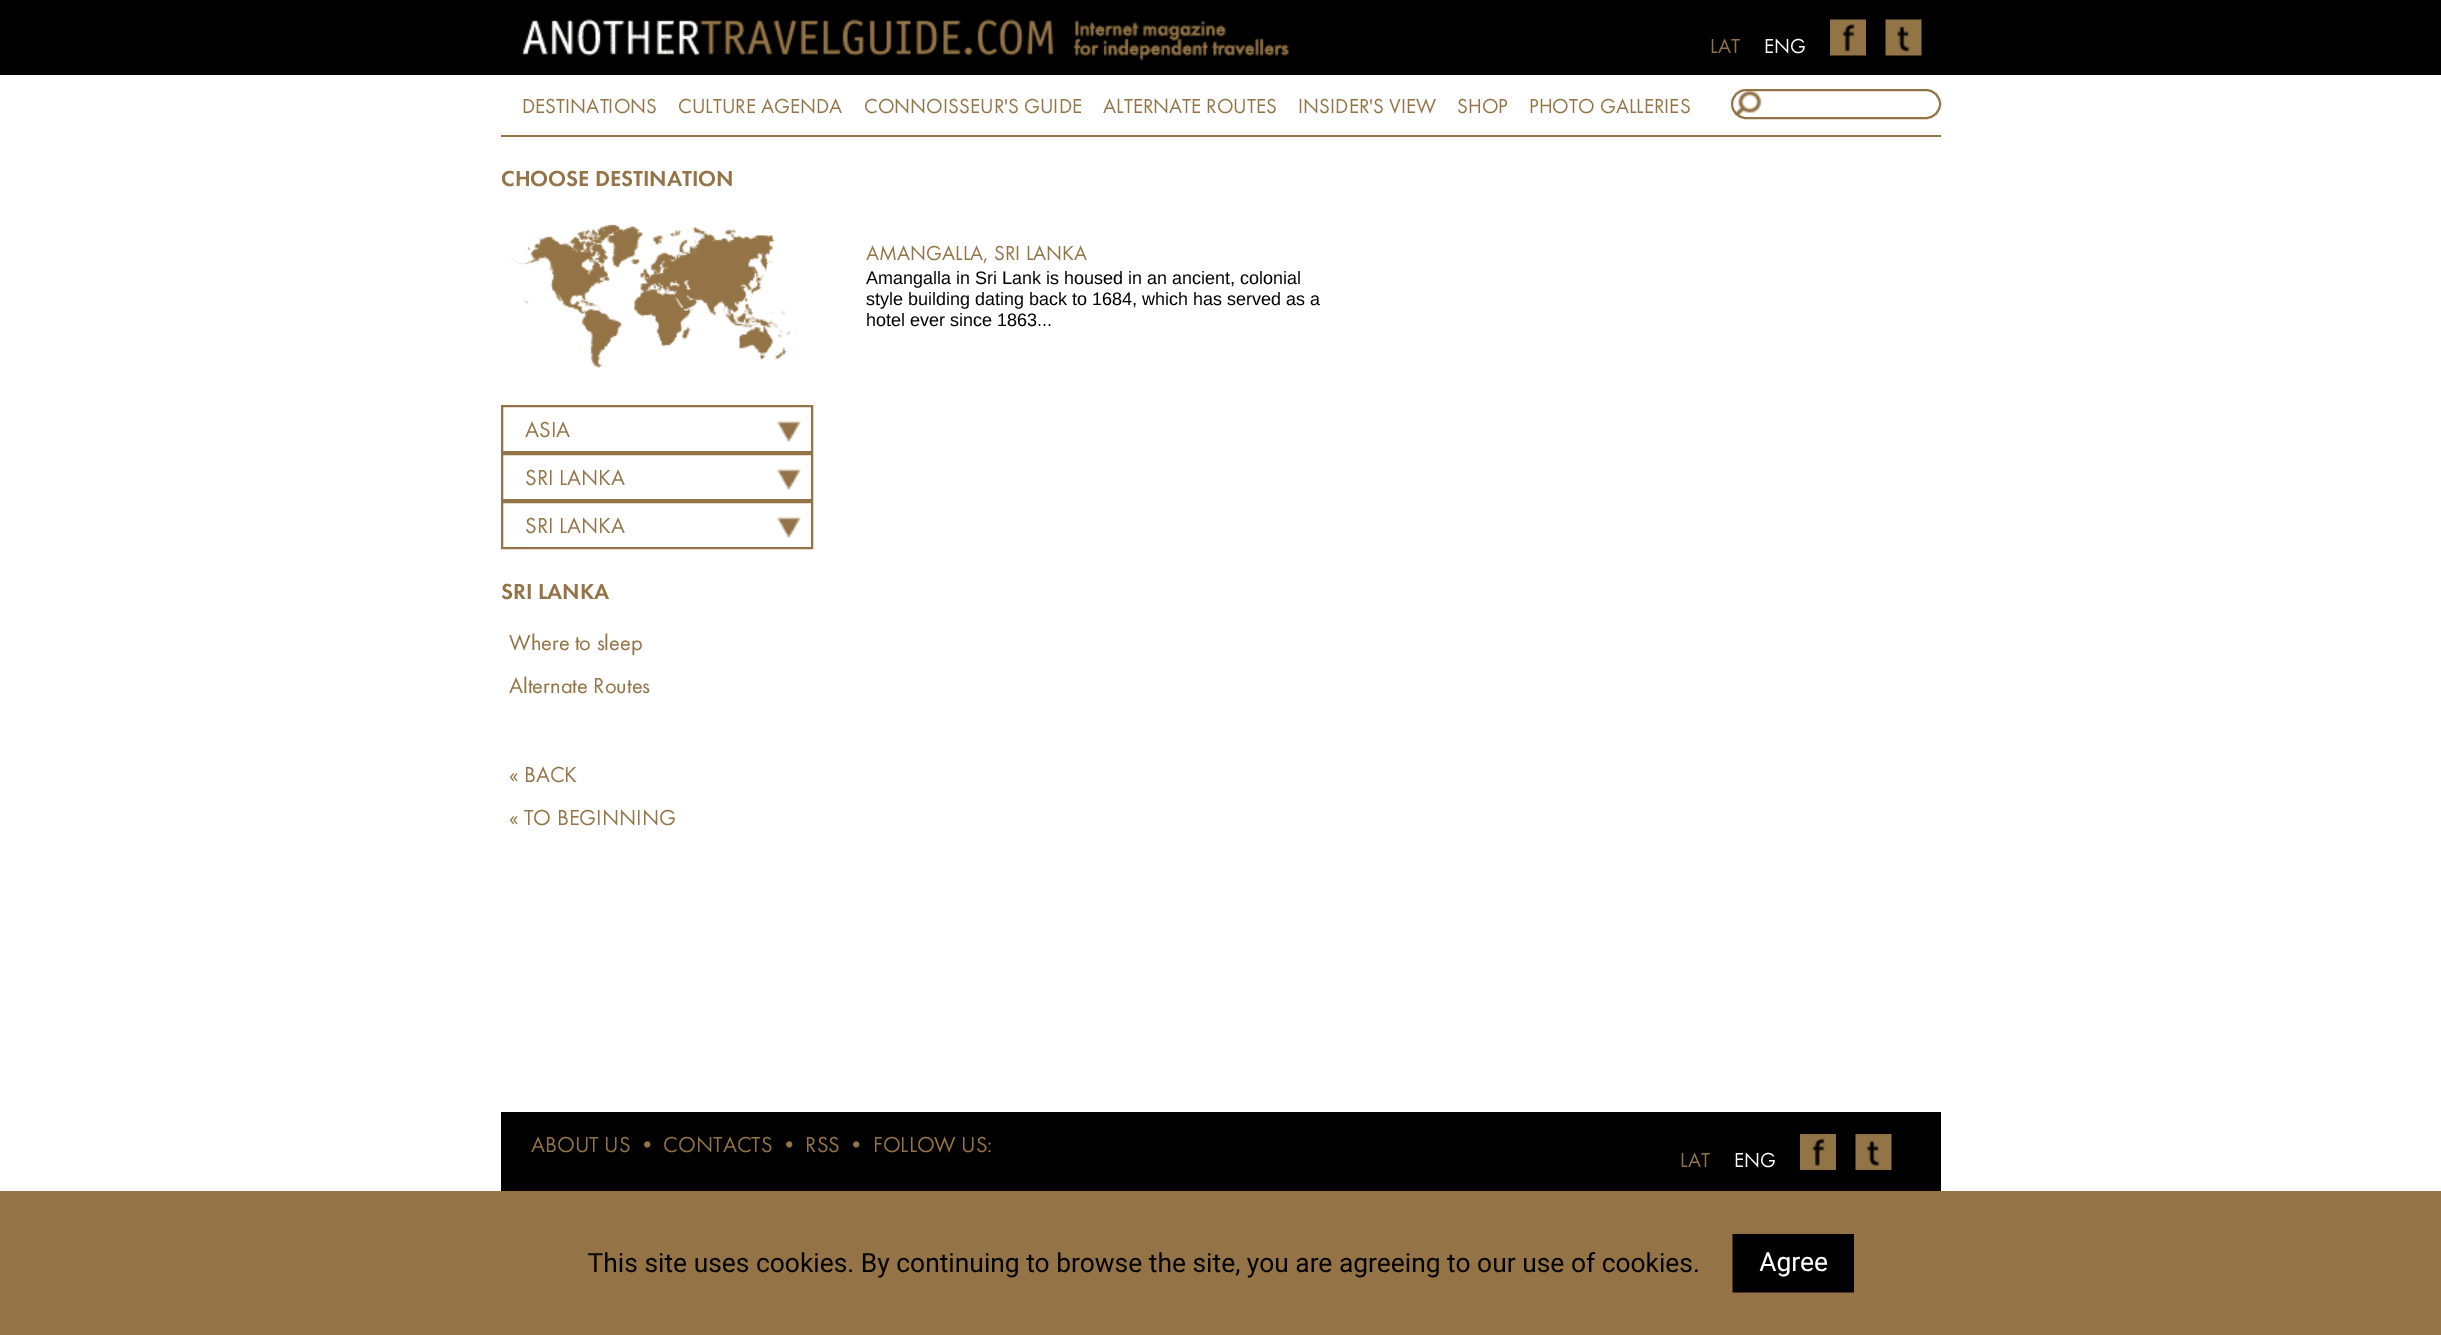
%!PS
<< /PageSize [2441 1335] >> setpagedevice
/rgb { 3 { 255 div 3 1 roll } repeat setrgbcolor } def
/font { [ exch dup neg 0 0 3 -1 roll 0 0 ] selectfont } def
/text { moveto show } def
/roundrect { 5 dict begin { /r /h /w /y /x } { exch def } forall
  x r add y moveto x w add y 2 copy h add r arct x w add y h add x 1 index r arct
  x y h add x y r arct x y 2 copy exch w add exch r arct closepath end } def
/picture { 5 dict begin { /h /w /y /x /name } { exch def } forall
  gsave x y translate w h scale
  w h 8 [w 0 0 h 0 0] name (r) file false 3 colorimage grestore end } def
0 1335 translate 1 -1 scale
4 setmiterlimit
255 255 255 rgb
0 0 2441 1335 rectfill
0 0 0 rgb
0 0 2441 75 rectfill
(img_01.rgb) 521 19 768 42 picture
(img_02.rgb) 1830 19 36 37 picture
(img_03.rgb) 1885 19 37 37 picture
148 116 70 rgb
501 135 1440 2 rectfill
(img_04.rgb) 1734 90 28 27 picture
2 setlinewidth
1732 90 208 28 14 roundrect stroke
(img_05.rgb) 511 224 286 144 picture
502 406 310 46 rectstroke
(img_06.rgb) 776 421 25 22 picture
502 454 310 46 rectstroke
(img_06.rgb) 776 469 25 22 picture
502 502 310 46 rectstroke
(img_06.rgb) 776 517 25 22 picture
0 0 0 rgb
501 1112 1440 79 rectfill
(img_07.rgb) 1800 1134 36 36 picture
(img_08.rgb) 1855 1134 37 36 picture
148 116 70 rgb
0 1191 2441 144 rectfill
(img_09.rgb) 588 1234 1266 59 picture
/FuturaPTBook-Regular 21 font
(LAT) 1710 53 text
255 255 255 rgb
(ENG) 1764 53 text
148 116 70 rgb
(DESTINATIONS) 522 113 text
(CULTURE AGENDA) 678 113 text
(CONNOISSEUR'S GUIDE) 864 113 text
(ALTERNATE ROUTES) 1103 113 text
(INSIDER'S VIEW) 1298 113 text
(SHOP) 1457 113 text
(PHOTO GALLERIES) 1529 113 text
/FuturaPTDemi-Regular 22.5 font
(CHOOSE DESTINATION) 501 186 text
/FuturaPTBook-Regular 22.5 font
(ASIA) 525 437 text
(SRI LANKA) 525 485 text
(SRI LANKA) 525 533 text
/FuturaPTDemi-Regular 22.5 font
(SRI LANKA) 501 599 text
/FuturaPTBook-Regular 22.5 font
(Where to sleep) 509 650 text
(Alternate Routes) 509 693 text
(« BACK) 509 782 text
(« TO BEGINNING) 509 825 text
/FuturaPTBook-Regular 21 font
(AMANGALLA, SRI LANKA) 866 260 text
/LiberationSans-Regular 18 font
0 0 0 rgb
(Amangalla in Sri Lank is housed in an ancient, colonial) 866 284 text
(style building dating back to 1684, which has served as a) 866 305 text
(hotel ever since 1863...) 866 326 text
/FuturaPTBook-Regular 22.5 font
148 116 70 rgb
(ABOUT US • CONTACTS • RSS • FOLLOW US:) 531 1152 text
/FuturaPTBook-Regular 21 font
(LAT) 1680 1167 text
255 255 255 rgb
(ENG) 1734 1167 text
showpage
